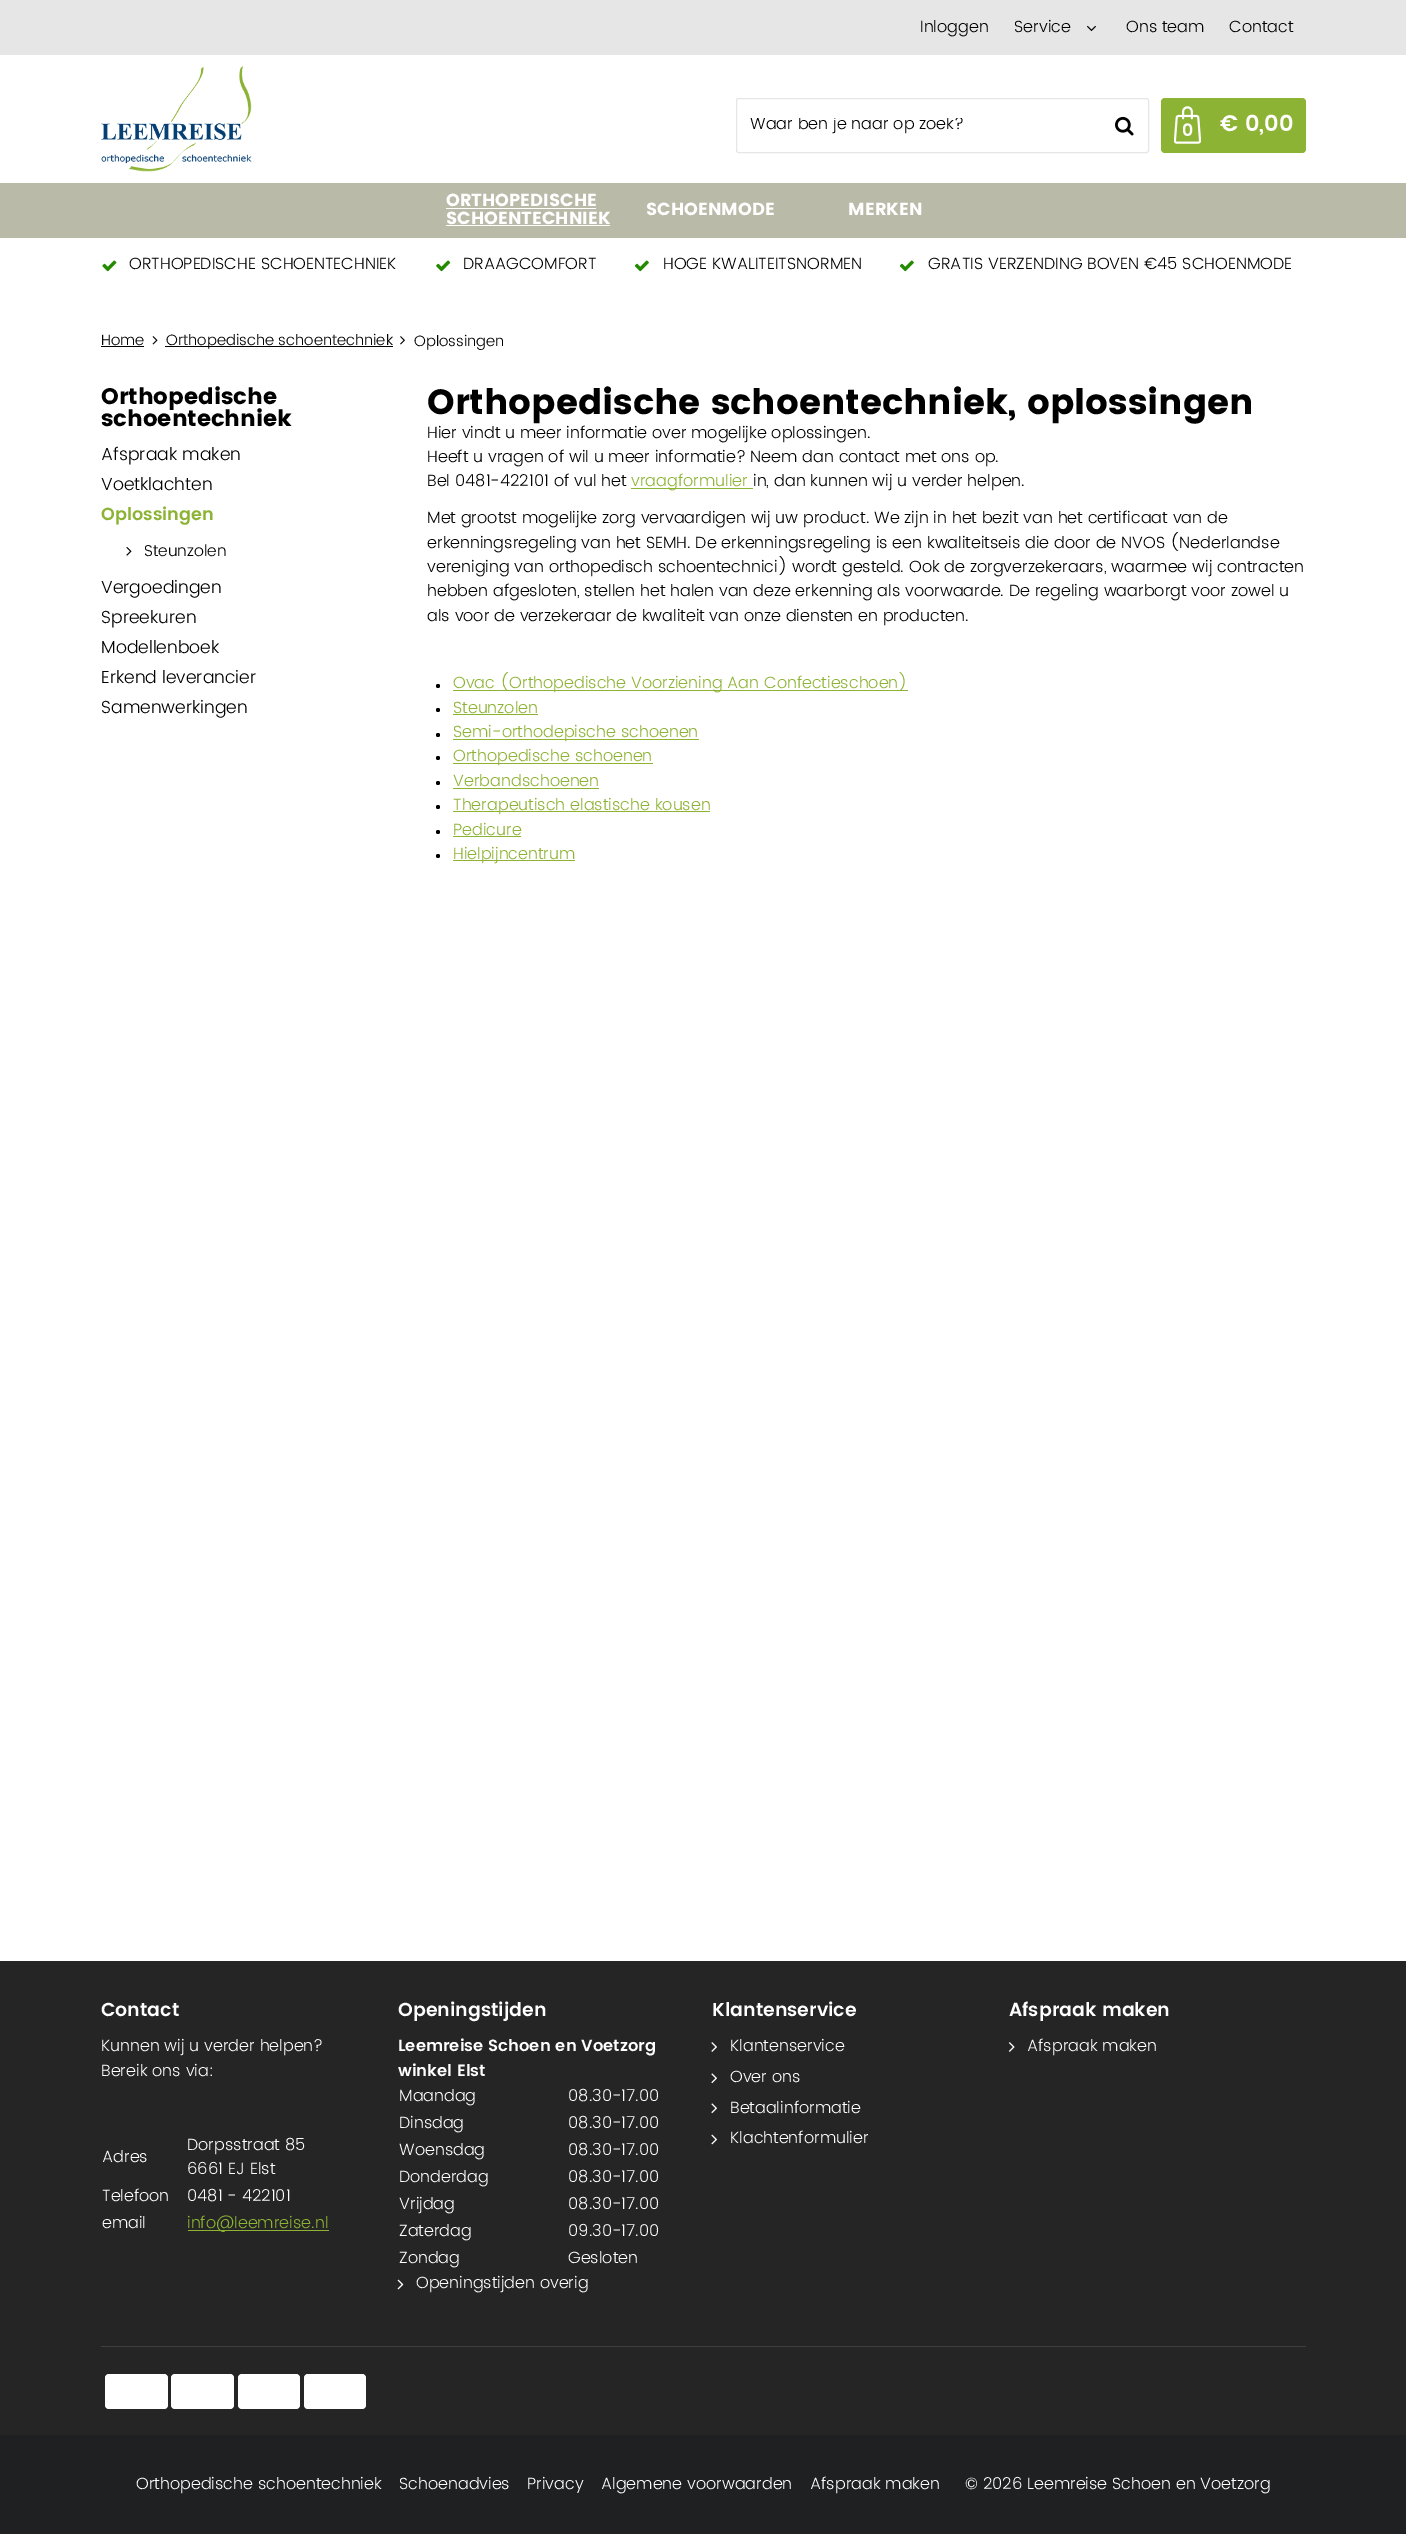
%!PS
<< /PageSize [1406 2534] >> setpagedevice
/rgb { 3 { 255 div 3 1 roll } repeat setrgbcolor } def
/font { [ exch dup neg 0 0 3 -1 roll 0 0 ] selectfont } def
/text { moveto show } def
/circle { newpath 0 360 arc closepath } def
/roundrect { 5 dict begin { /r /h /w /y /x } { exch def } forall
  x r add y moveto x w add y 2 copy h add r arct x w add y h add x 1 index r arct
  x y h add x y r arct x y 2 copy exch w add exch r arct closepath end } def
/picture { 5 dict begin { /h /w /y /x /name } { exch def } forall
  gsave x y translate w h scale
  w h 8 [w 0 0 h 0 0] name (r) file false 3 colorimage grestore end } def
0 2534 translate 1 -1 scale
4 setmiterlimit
255 255 255 rgb
0 0 1406 2534 rectfill
230 230 230 rgb
0 0 1406 55 rectfill
(img_01.rgb) 1087 25 9 7 picture
(img_02.rgb) 101 66 151 106 picture
736.5 98.5 412 54 2 roundrect stroke
(img_03.rgb) 1115 116 19 20 picture
141 179 53 rgb
1161 98 145 55 4 roundrect fill
(img_04.rgb) 1174 106 27 38 picture
186 186 169 rgb
0 183 1406 55 rectfill
255 255 255 rgb
446 208 150 1 rectfill
446 225 164 1 rectfill
(img_05.rgb) 102 260 15 12 picture
(img_06.rgb) 436 260 15 12 picture
(img_07.rgb) 634 260 15 12 picture
(img_07.rgb) 899 260 15 12 picture
0 0 0 rgb
101 346 43 1 rectfill
(img_08.rgb) 152 336 6 9 picture
165 346 228 1 rectfill
(img_09.rgb) 400 336 5 9 picture
(img_10.rgb) 126 547 6 9 picture
141 179 53 rgb
631 488 122 1 rectfill
0 0 0 rgb
438 686 2 circle fill
141 179 53 rgb
453 690 455 1 rectfill
0 0 0 rgb
438 710 2 circle fill
141 179 53 rgb
453 714 85 1 rectfill
0 0 0 rgb
438 735 2 circle fill
141 179 53 rgb
453 739 246 1 rectfill
0 0 0 rgb
438 758 2 circle fill
141 179 53 rgb
453 763 200 1 rectfill
0 0 0 rgb
438 783 2 circle fill
141 179 53 rgb
453 788 146 1 rectfill
0 0 0 rgb
438 807 2 circle fill
141 179 53 rgb
453 811 257 1 rectfill
0 0 0 rgb
438 832 2 circle fill
141 179 53 rgb
453 836 68 1 rectfill
0 0 0 rgb
438 856 2 circle fill
141 179 53 rgb
453 860 122 1 rectfill
37 37 37 rgb
0 1961 1406 474 rectfill
141 179 53 rgb
188 2230 141 1 rectfill
(img_11.rgb) 397 2279 7 11 picture
(img_12.rgb) 711 2042 6 10 picture
(img_13.rgb) 711 2073 6 11 picture
(img_13.rgb) 711 2103 6 11 picture
(img_14.rgb) 711 2134 6 11 picture
(img_15.rgb) 1008 2042 7 10 picture
64 64 64 rgb
101 2346 1205 1 rectfill
255 255 255 rgb
105 2374 63 35 4 roundrect fill
171 2374 63 35 4 roundrect fill
238 2374 62 35 4 roundrect fill
304 2374 62 35 4 roundrect fill
31 32 34 rgb
0 2435 1406 99 rectfill
/Poppins-Light 16.25 font
0 0 0 rgb
(Inloggen) 920 32 text
(Service) 1014 32 text
(Ons team) 1126 32 text
(Contact) 1229 32 text
gsave
750 118 285 16 rectclip
(Waar ben je naar op zoek?) 750 129 text
grestore
/Poppins-SemiBold 17.5 font
255 255 255 rgb
(0) 1182 136 text
/Poppins-SemiBold 22.5 font
(€ 0,00) 1220 131 text
/Poppins-Bold 17.5 font
(ORTHOPEDISCHE) 446 206 text
(SCHOENTECHNIEK) 446 224 text
(SCHOENMODE) 646 215 text
(MERKEN) 848 215 text
/Poppins-Light 16.25 font
0 0 0 rgb
(ORTHOPEDISCHE SCHOENTECHNIEK) 129 269 text
(DRAAGCOMFORT) 463 269 text
(HOGE KWALITEITSNORMEN) 663 269 text
(GRATIS VERZENDING BOVEN €45 SCHOENMODE) 928 269 text
/Poppins-Light 15 font
(Home) 101 345 text
(Orthopedische schoentechniek) 166 345 text
(Oplossingen) 414 346 text
/Poppins-Bold 22.5 font
(Orthopedische) 101 404 text
(schoentechniek) 101 426 text
/Poppins-Light 17.5 font
(Afspraak maken) 101 460 text
(Voetklachten) 101 490 text
/Poppins-SemiBold 17.5 font
141 179 53 rgb
(Oplossingen) 101 520 text
/Poppins-Light 15.75 font
0 0 0 rgb
(Steunzolen) 144 556 text
/Poppins-Light 17.5 font
(Vergoedingen) 101 593 text
(Spreekuren) 101 623 text
(Modellenboek) 101 653 text
(Erkend leverancier) 101 683 text
(Samenwerkingen) 101 713 text
/Poppins-Bold 35 font
(Orthopedische schoentechniek, oplossingen) 427 414 text
/Poppins-Light 16.25 font
(Hier vindt u meer informatie over mogelijke oplossingen.) 427 438 text
(Heeft u vragen of wil u meer informatie? Neem dan contact met ons op.) 427 462 text
(Bel 0481-422101 of vul het) 427 486 text
141 179 53 rgb
(vraagformulier) 631 486 text
0 0 0 rgb
(in, dan kunnen wij u verder helpen.) 753 486 text
(Met grootst mogelijke zorg vervaardigen wij uw product. We zijn in het bezit van het certificaat van de) 427 523 text
(erkenningsregeling van het SEMH. De erkenningsregeling is een kwaliteitseis die door de NVOS \(Nederlandse) 427 548 text
(vereniging van orthopedisch schoentechnici\) wordt gesteld. Ook de zorgverzekeraars, waarmee wij contracten) 427 572 text
(hebben afgesloten, stellen het halen van deze erkenning als voorwaarde. De regeling waarborgt voor zowel u) 427 596 text
(als voor de verzekeraar de kwaliteit van onze diensten en producten.) 427 621 text
141 179 53 rgb
(Ovac \(Orthopedische Voorziening Aan Confectieschoen\)) 453 688 text
(Steunzolen) 453 713 text
(Semi-orthodepische schoenen) 453 737 text
(Orthopedische schoenen) 453 761 text
(Verbandschoenen) 453 786 text
(Therapeutisch elastische kousen) 453 810 text
(Pedicure) 453 835 text
(Hielpijncentrum) 453 859 text
/Poppins-SemiBold 18.75 font
255 255 255 rgb
(Contact) 101 2016 text
/Poppins-Light 16.25 font
(Kunnen wij u verder helpen?) 101 2051 text
(Bereik ons via:) 101 2076 text
(Adres) 102 2162 text
(Dorpsstraat 85) 187 2150 text
(6661 EJ Elst) 187 2174 text
(Telefoon) 102 2201 text
(0481 - 422101) 187 2201 text
(email) 102 2228 text
141 179 53 rgb
(info@leemreise.nl) 187 2228 text
/Poppins-SemiBold 18.75 font
255 255 255 rgb
(Openingstijden) 398 2016 text
/Poppins-SemiBold 16.25 font
(Leemreise Schoen en Voetzorg) 398 2051 text
(winkel Elst) 398 2076 text
/Poppins-Light 16.25 font
(Maandag) 399 2101 text
(08.30-17.00) 568 2101 text
(Dinsdag) 399 2128 text
(08.30-17.00) 568 2128 text
(Woensdag) 399 2155 text
(08.30-17.00) 568 2155 text
(Donderdag) 399 2182 text
(08.30-17.00) 568 2182 text
(Vrijdag) 399 2209 text
(08.30-17.00) 568 2209 text
(Zaterdag) 399 2236 text
(09.30-17.00) 568 2236 text
(Zondag) 399 2263 text
(Gesloten) 568 2263 text
(Openingstijden overig) 416 2288 text
/Poppins-SemiBold 18.75 font
(Klantenservice) 712 2016 text
/Poppins-Light 16.25 font
(Klantenservice) 730 2051 text
(Over ons) 730 2082 text
(Betaalinformatie) 730 2113 text
(Klachtenformulier) 730 2143 text
/Poppins-SemiBold 18.75 font
(Afspraak maken) 1009 2016 text
/Poppins-Light 16.25 font
(Afspraak maken) 1027 2051 text
(Orthopedische schoentechniek) 136 2489 text
(Schoenadvies) 399 2489 text
(Privacy) 527 2489 text
(Algemene voorwaarden) 601 2489 text
(Afspraak maken) 810 2489 text
(© 2026 Leemreise Schoen en Voetzorg) 965 2489 text
showpage
